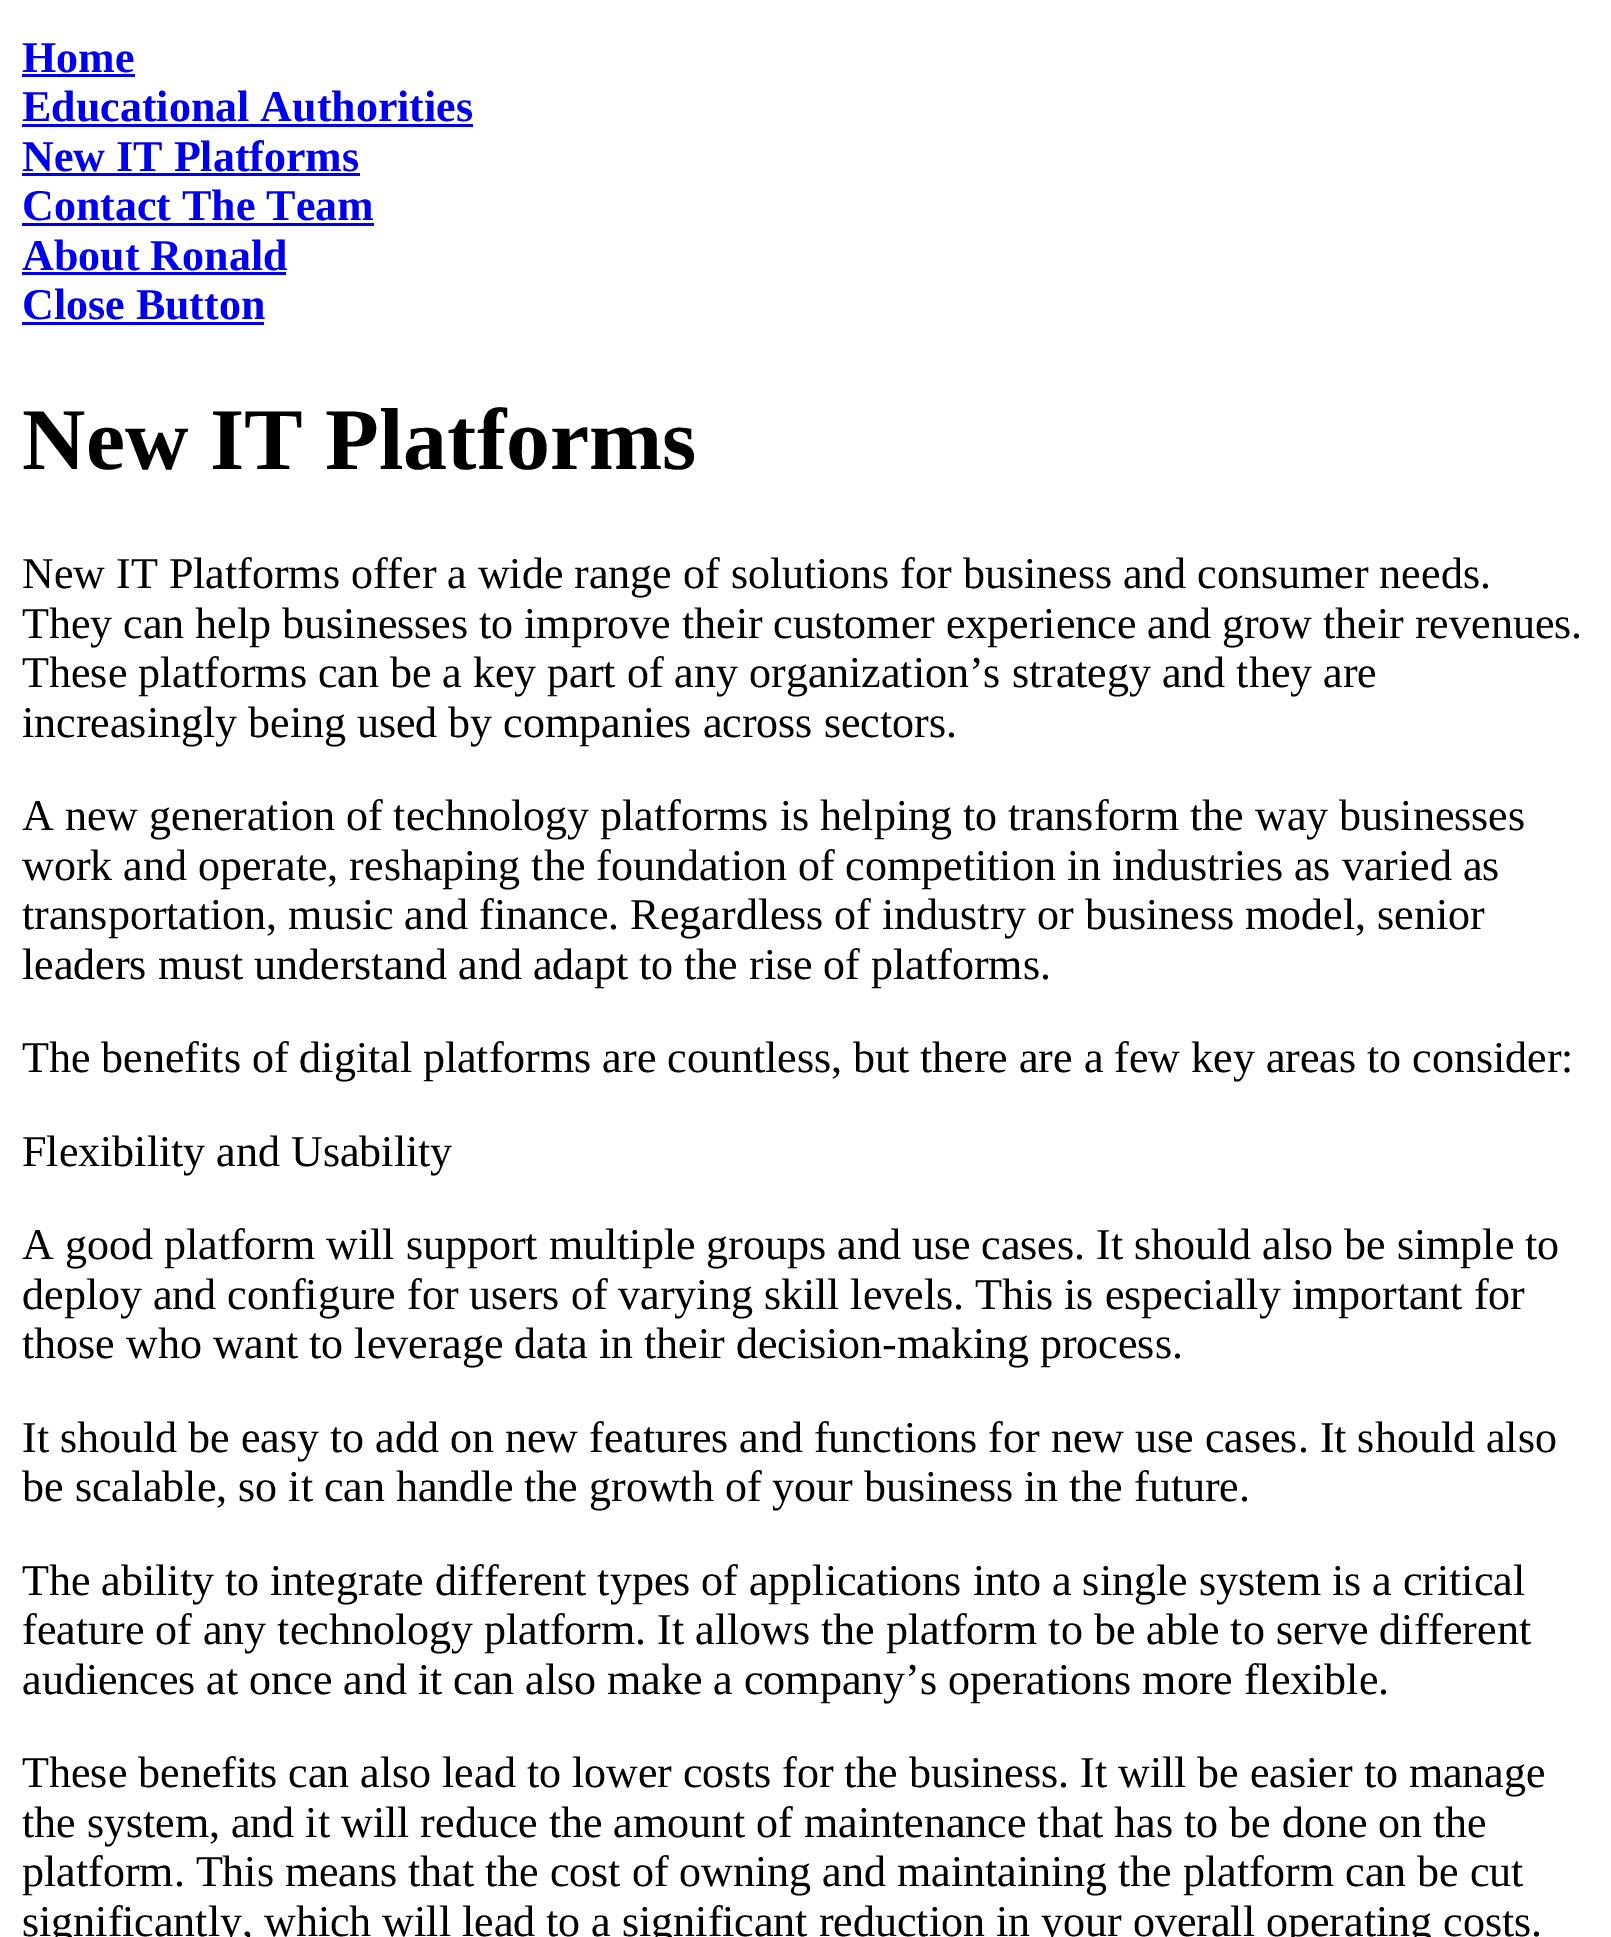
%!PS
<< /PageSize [1611 1937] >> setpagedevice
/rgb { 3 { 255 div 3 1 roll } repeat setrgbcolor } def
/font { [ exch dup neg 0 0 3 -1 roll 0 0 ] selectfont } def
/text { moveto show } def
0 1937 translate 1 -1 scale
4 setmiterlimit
255 255 255 rgb
0 0 1611 1937 rectfill
0 0 238 rgb
22 74 113 3 rectfill
22 124 451 3 rectfill
22 173 338 3 rectfill
22 223 352 3 rectfill
22 272 264 3 rectfill
22 322 242 3 rectfill
/LiberationSerif-Bold 44 font
(Home) 22 72 text
(Educational Authorities) 22 121 text
(New IT Platforms) 22 171 text
(Contact The Team) 22 220 text
(About Ronald) 22 270 text
(Close Button) 22 319 text
/LiberationSerif-Bold 88 font
0 0 0 rgb
(New IT Platforms) 22 469 text
/LiberationSerif-Regular 44 font
(New IT Platforms offer a wide range of solutions for business and consumer needs.) 22 588 text
(They can help businesses to improve their customer experience and grow their revenues.) 22 638 text
(These platforms can be a key part of any organization’s strategy and they are) 22 687 text
(increasingly being used by companies across sectors.) 22 737 text
(A new generation of technology platforms is helping to transform the way businesses) 22 830 text
(work and operate, reshaping the foundation of competition in industries as varied as) 22 880 text
(transportation, music and finance. Regardless of industry or business model, senior) 22 929 text
(leaders must understand and adapt to the rise of platforms.) 22 979 text
(The benefits of digital platforms are countless, but there are a few key areas to consider:) 22 1072 text
(Flexibility and Usability) 22 1166 text
(A good platform will support multiple groups and use cases. It should also be simple to) 22 1259 text
(deploy and configure for users of varying skill levels. This is especially important for) 22 1309 text
(those who want to leverage data in their decision-making process.) 22 1358 text
(It should be easy to add on new features and functions for new use cases. It should also) 22 1452 text
(be scalable, so it can handle the growth of your business in the future.) 22 1501 text
(The ability to integrate different types of applications into a single system is a critical) 22 1595 text
(feature of any technology platform. It allows the platform to be able to serve different) 22 1644 text
(audiences at once and it can also make a company’s operations more flexible.) 22 1694 text
(These benefits can also lead to lower costs for the business. It will be easier to manage) 22 1787 text
(the system, and it will reduce the amount of maintenance that has to be done on the) 22 1837 text
(platform. This means that the cost of owning and maintaining the platform can be cut) 22 1886 text
(significantly, which will lead to a significant reduction in your overall operating costs.) 22 1936 text
showpage
